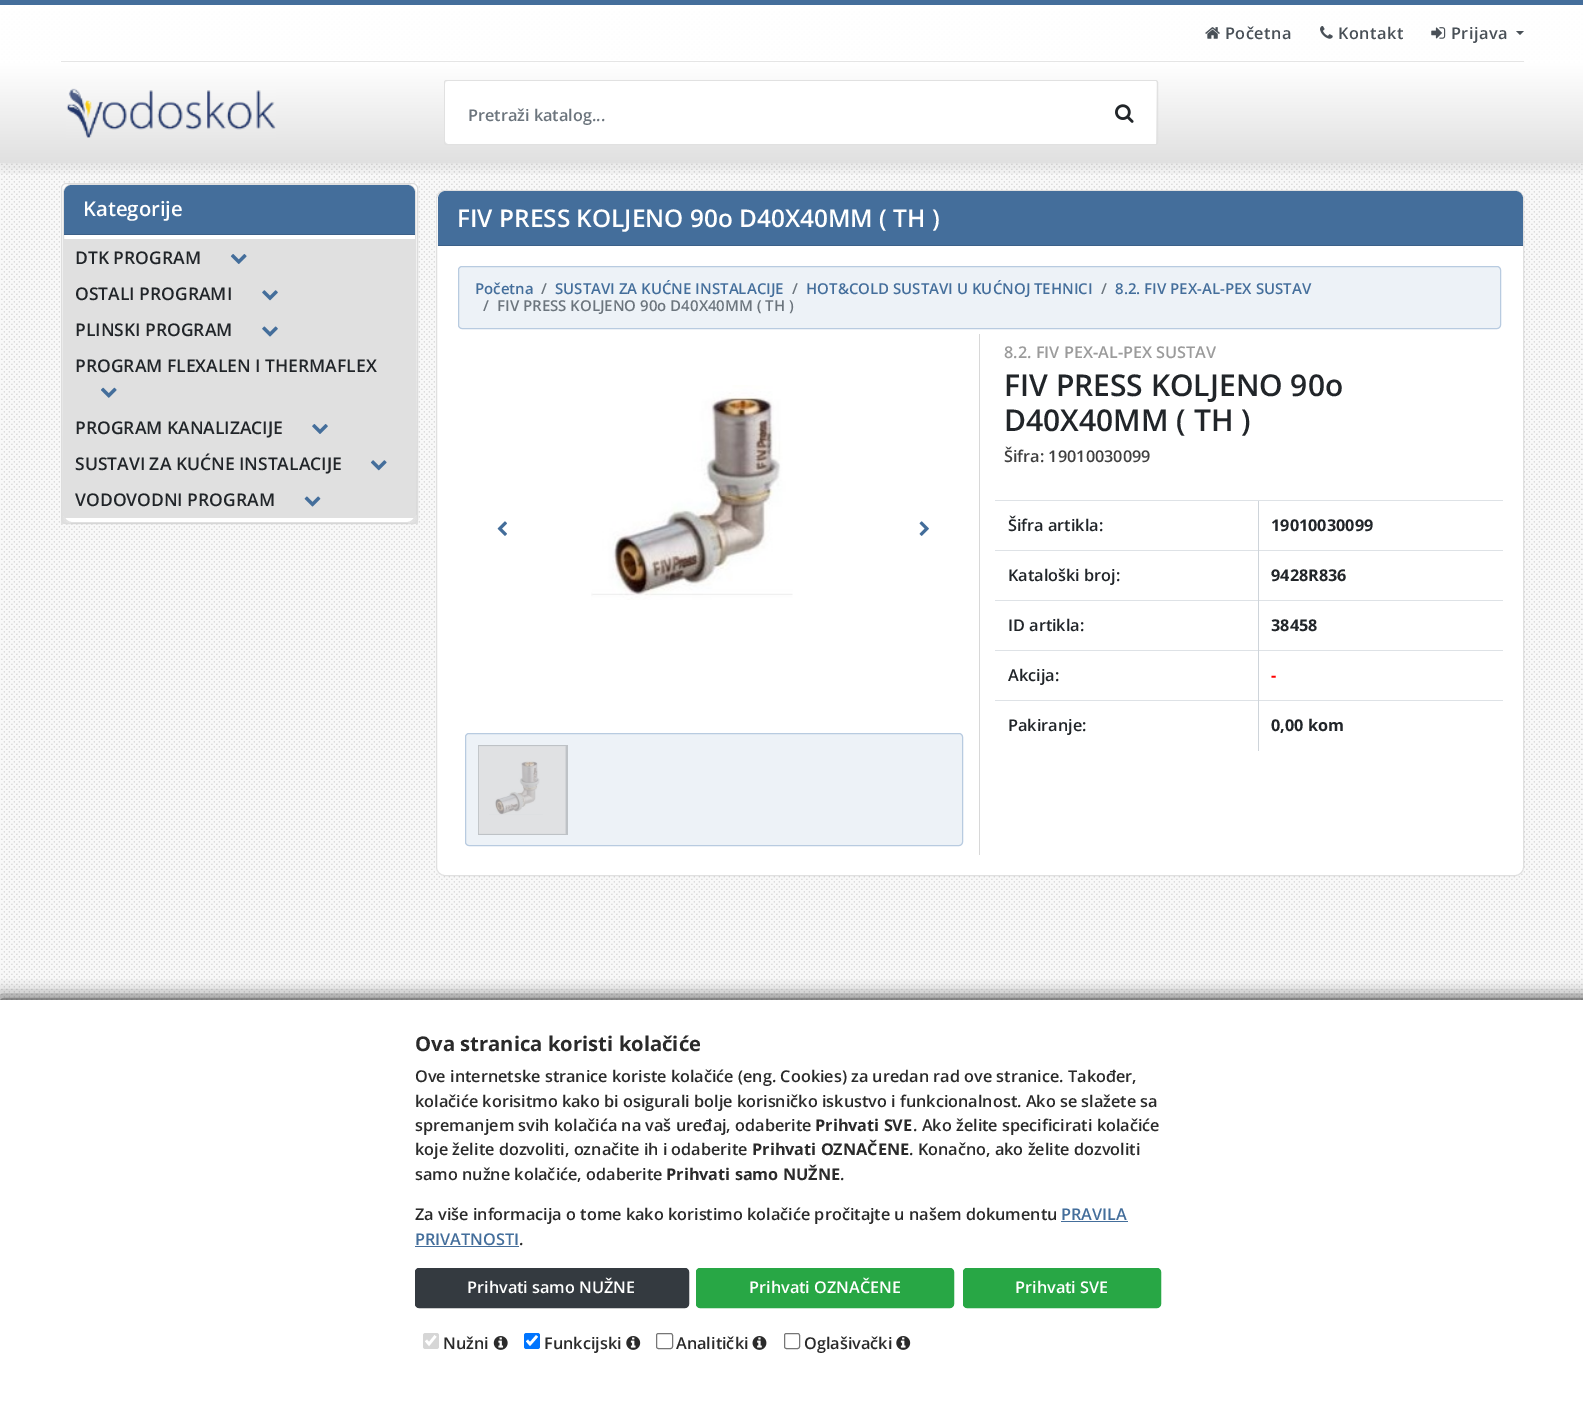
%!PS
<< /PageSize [1583 1412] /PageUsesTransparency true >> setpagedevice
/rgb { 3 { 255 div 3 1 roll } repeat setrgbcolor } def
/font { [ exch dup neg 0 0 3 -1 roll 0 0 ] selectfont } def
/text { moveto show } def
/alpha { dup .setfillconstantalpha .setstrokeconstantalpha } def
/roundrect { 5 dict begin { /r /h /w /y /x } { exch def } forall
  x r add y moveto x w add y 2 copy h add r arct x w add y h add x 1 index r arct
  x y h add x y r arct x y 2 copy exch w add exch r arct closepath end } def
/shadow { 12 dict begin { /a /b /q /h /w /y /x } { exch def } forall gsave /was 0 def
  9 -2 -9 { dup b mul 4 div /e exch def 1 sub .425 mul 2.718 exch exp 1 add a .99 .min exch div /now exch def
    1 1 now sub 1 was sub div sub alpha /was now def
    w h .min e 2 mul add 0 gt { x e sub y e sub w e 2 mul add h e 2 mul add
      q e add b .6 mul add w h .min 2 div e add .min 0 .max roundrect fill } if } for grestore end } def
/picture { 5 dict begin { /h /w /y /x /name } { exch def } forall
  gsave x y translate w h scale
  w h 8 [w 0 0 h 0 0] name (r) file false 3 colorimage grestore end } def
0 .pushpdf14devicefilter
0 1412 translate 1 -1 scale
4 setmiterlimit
248 248 248 rgb
0 0 1583 1412 rectfill
(img_01.rgb) 1 6 1582 994 picture
gsave 61 183 moveto 357 0 rlineto 0 341 rlineto -357 0 rlineto closepath clip newpath
<< /ShadingType 2 /ColorSpace /DeviceRGB /Coords [239 182 239 524] /Extend [true true] /Function << /FunctionType 2 /Domain [0 1] /C0 [1 1 1] /C1 [0.878 0.878 0.878] /N 1 >> >> shfill grestore
221 221 221 rgb
61.5 183.5 356 340 4.5 roundrect stroke
255 255 255 rgb
63 184 353 339 9 roundrect fill
0.12 alpha
0 0 0 rgb
63.5 184.5 352 338 8.5 roundrect stroke
1 alpha
68 110 155 rgb
72 185 moveto 335 0 rlineto 4.5 0 8 3.5 8 8 rcurveto 0 42 rlineto -351 0 rlineto 0 -42 rlineto 0 -4.5 3.5 -8 8 -8 rcurveto closepath fill
255 255 255 rgb
436 190 1088 686 9 roundrect fill
0.12 alpha
0 0 0 rgb
436.5 190.5 1087 685 8.5 roundrect stroke
1 alpha
68 110 155 rgb
446 191 moveto 1069 0 rlineto 4.5 0 8 3.5 8 8 rcurveto 0 47 rlineto -1085 0 rlineto 0 -47 rlineto 0 -4.5 3.5 -8 8 -8 rcurveto closepath fill
gsave
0 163 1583 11 rectclip
0 0 0 rgb
0 4 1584 162 0 9.5 0.1 shadow
grestore
0.93 alpha
255 255 255 rgb
0 5 1583 58 rectfill
1 alpha
68 110 155 rgb
0 0 1583 5 rectfill
229 229 229 rgb
61 61 1463 1 rectfill
(img_02.rgb) 1205 27 15 12 picture
(img_03.rgb) 1320 26 13 13 picture
(img_04.rgb) 1431 27 15 12 picture
73 80 87 rgb
1516 31 moveto 8 0 rlineto -4 4 rlineto closepath fill
gsave 0 63 moveto 1583 0 rlineto 0 100 rlineto -1583 0 rlineto closepath clip newpath
<< /ShadingType 2 /ColorSpace /DeviceRGB /Coords [792 62 792 163] /Extend [true true] /Function << /FunctionType 2 /Domain [0 1] /C0 [1 1 1] /C1 [0.878 0.878 0.878] /N 1 >> >> shfill grestore
(img_05.rgb) 66 88 210 50 picture
225 225 225 rgb
444.5 80.5 713 64 2 roundrect stroke
255 255 255 rgb
449 81 moveto 707 0 rlineto 0 63 rlineto -707 0 rlineto -2 0 -4 -2 -4 -4 rcurveto 0 -55 rlineto 0 -2 2 -4 4 -4 rcurveto closepath fill
(img_06.rgb) 1115 104 19 19 picture
60 96 136 rgb
64 234 351 1 rectfill
224 224 224 rgb
64 239 351 242 rectfill
(img_07.rgb) 230 254 17 10 picture
(img_08.rgb) 262 290 16 11 picture
(img_09.rgb) 262 326 16 11 picture
(img_10.rgb) 101 387 16 11 picture
(img_11.rgb) 312 424 16 10 picture
(img_12.rgb) 370 460 17 11 picture
gsave
64 185 351 336 8 roundrect clip newpath
64 481 351 37 rectfill
grestore
(img_13.rgb) 304 496 17 11 picture
60 96 136 rgb
438 245 1085 1 rectfill
237 242 247 rgb
458.5 266.5 1042 62 3.5 roundrect gsave fill grestore
184 203 224 rgb
stroke
216 216 216 rgb
979 334 1 521 rectfill
(img_14.rgb) 497 521 10 15 picture
(img_15.rgb) 591 385 202 215 picture
(img_16.rgb) 919 521 10 15 picture
237 242 247 rgb
465.5 733.5 497 112 3.5 roundrect gsave fill grestore
184 203 224 rgb
stroke
190 194 198 rgb
478 745 90 90 rectfill
210 212 215 rgb
479 746 87 88 rectfill
(img_17.rgb) 478 746 87 88 picture
222 226 230 rgb
1258 500 245 1 rectfill
1258 550 245 1 rectfill
1258 600 245 1 rectfill
1258 650 245 1 rectfill
1258 700 245 1 rectfill
206 212 218 rgb
1258 700 1 51 rectfill
222 226 230 rgb
995 700 264 1 rectfill
206 212 218 rgb
1258 650 1 51 rectfill
222 226 230 rgb
995 650 264 1 rectfill
206 212 218 rgb
1258 600 1 51 rectfill
222 226 230 rgb
995 600 264 1 rectfill
206 212 218 rgb
1258 550 1 51 rectfill
222 226 230 rgb
995 550 264 1 rectfill
206 212 218 rgb
1258 500 1 51 rectfill
222 226 230 rgb
995 500 264 1 rectfill
18 18 18 rgb
0 1000 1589 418 0 9 1 shadow
255 255 255 rgb
0 1000 1583 412 rectfill
68 110 155 rgb
1061 1221 67 1 rectfill
415 1246 104 1 rectfill
52 58 64 rgb
415.5 1268.5 273 39 3.5 roundrect gsave fill grestore
stroke
40 167 69 rgb
696.5 1268.5 257 39 3.5 roundrect gsave fill grestore
stroke
963.5 1268.5 197 39 3.5 roundrect gsave fill grestore
stroke
214 214 214 rgb
423 1333 16 16 2.5 roundrect fill
255 255 255 rgb
2.6 setlinewidth
426 1340.5 moveto 3 3.5 rlineto 6.5 -8 rlineto stroke
(img_18.rgb) 493 1336 15 14 picture
0 117 255 rgb
524 1333 16 16 2.5 roundrect fill
255 255 255 rgb
527 1340.5 moveto 3 3.5 rlineto 7 -8 rlineto stroke
(img_19.rgb) 626 1336 15 14 picture
118 118 118 rgb
1 setlinewidth
656.5 1333.5 16 15 2 roundrect stroke
(img_20.rgb) 752 1336 15 14 picture
784.5 1333.5 15 15 2 roundrect stroke
(img_19.rgb) 896 1336 15 14 picture
/OpenSans-SemiBold 16.25 font
73 80 87 rgb
1225 39 moveto 0.5 0 (Početna) ashow
1338 39 moveto 0.5 0 (Kontakt) ashow
1451 39 moveto 0.5 0 (Prijava) ashow
108 117 125 rgb
(Pretraži katalog...) 468 121 text
/OpenSans-SemiBold 20.25 font
255 255 255 rgb
(Kategorije) 83 216 text
/OpenSans-SemiBold 17.5 font
33 37 41 rgb
(DTK PROGRAM) 75 264 text
(OSTALI PROGRAMI) 75 300 text
(PLINSKI PROGRAM) 75 336 text
(PROGRAM FLEXALEN I THERMAFLEX) 75 372 text
(PROGRAM KANALIZACIJE) 75 434 text
(SUSTAVI ZA KUĆNE INSTALACIJE) 75 470 text
(VODOVODNI PROGRAM) 75 506 text
/OpenSans-SemiBold 24.4 font
255 255 255 rgb
(FIV PRESS KOLJENO 90o D40X40MM \( TH \)) 457 227 text
/OpenSans-SemiBold 15 font
68 110 155 rgb
(Početna) 475 294 text
108 117 125 rgb
(/) 541 294 text
68 110 155 rgb
(SUSTAVI ZA KUĆNE INSTALACIJE) 555 294 text
108 117 125 rgb
(/) 792 294 text
68 110 155 rgb
(HOT&COLD SUSTAVI U KUĆNOJ TEHNICI) 806 294 text
108 117 125 rgb
(/) 1101 294 text
68 110 155 rgb
(8.2. FIV PEX-AL-PEX SUSTAV) 1115 294 text
108 117 125 rgb
(/) 483 311 text
(FIV PRESS KOLJENO 90o D40X40MM \( TH \)) 497 311 text
/OpenSans-SemiBold 16.25 font
155 155 155 rgb
(8.2. FIV PEX-AL-PEX SUSTAV) 1004 358 text
/OpenSans-SemiBold 30 font
33 37 41 rgb
(FIV PRESS KOLJENO 90o) 1004 396 text
(D40X40MM \( TH \)) 1004 431 text
/OpenSans-SemiBold 16.25 font
64 64 64 rgb
(Šifra: 19010030099) 1004 462 text
33 37 41 rgb
(Šifra artikla:) 1008 531 text
/OpenSans-Bold 16.25 font
(19010030099) 1271 531 text
/OpenSans-SemiBold 16.25 font
(Kataloški broj:) 1008 581 text
/OpenSans-Bold 16.25 font
(9428R836) 1271 581 text
/OpenSans-SemiBold 16.25 font
(ID artikla:) 1008 631 text
/OpenSans-Bold 16.25 font
(38458) 1271 631 text
/OpenSans-SemiBold 16.25 font
(Akcija:) 1008 681 text
/OpenSans-Bold 16.25 font
255 0 0 rgb
(-) 1271 681 text
/OpenSans-SemiBold 16.25 font
33 37 41 rgb
(Pakiranje:) 1008 731 text
/OpenSans-Bold 16.25 font
(0,00 kom) 1271 731 text
/OpenSans-Bold 20.25 font
42 42 42 rgb
(Ova stranica koristi kolačiće) 415 1051 text
/OpenSans-SemiBold 16.25 font
(Ove internetske stranice koriste kolačiće \(eng. Cookies\) za uredan rad ove stranice. Također,) 415 1082 text
(kolačiće korisitmo kako bi osigurali bolje korisničko iskustvo i funkcionalnost. Ako se slažete sa) 415 1107 text
(spremanjem svih kolačića na vaš uređaj, odaberite) 415 1131 text
/OpenSans-Bold 16.25 font
(Prihvati SVE) 815 1131 text
/OpenSans-SemiBold 16.25 font
(. Ako želite specificirati kolačiće) 913 1131 text
(koje želite dozvoliti, označite ih i odaberite) 415 1155 text
/OpenSans-Bold 16.25 font
(Prihvati OZNAČENE) 752 1155 text
/OpenSans-SemiBold 16.25 font
(. Konačno, ako želite dozvoliti) 909 1155 text
(samo nužne kolačiće, odaberite) 415 1180 text
/OpenSans-Bold 16.25 font
(Prihvati samo NUŽNE) 666 1180 text
/OpenSans-SemiBold 16.25 font
(.) 840 1180 text
(Za više informacija o tome kako koristimo kolačiće pročitajte u našem dokumentu) 415 1220 text
68 110 155 rgb
(PRAVILA) 1061 1220 text
(PRIVATNOSTI) 415 1245 text
42 42 42 rgb
(.) 519 1245 text
255 255 255 rgb
(Prihvati samo NUŽNE) 467 1293 text
(Prihvati OZNAČENE) 749 1293 text
(Prihvati SVE) 1015 1293 text
42 42 42 rgb
(Nužni) 443 1349 text
(Funkcijski) 544 1349 text
(Analitički) 676 1349 text
(Oglašivački) 804 1349 text
.poppdf14devicefilter showpage
